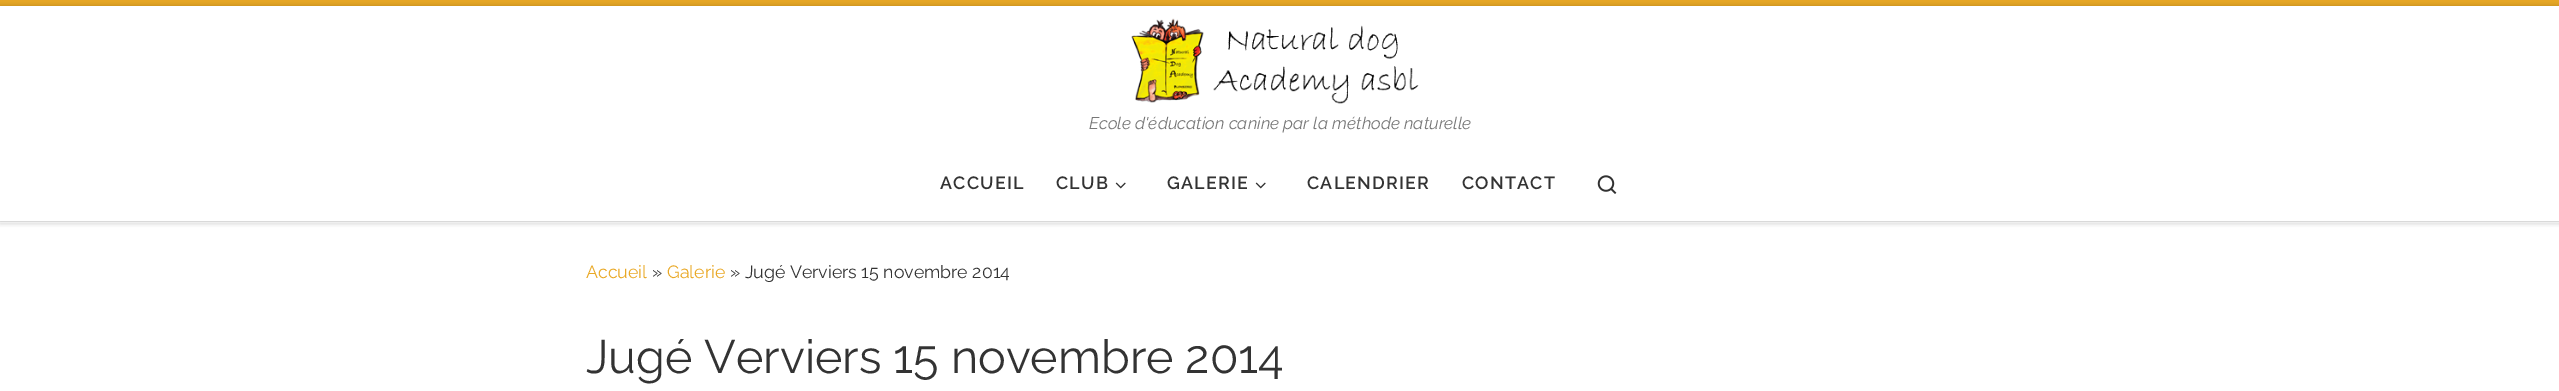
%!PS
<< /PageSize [2559 391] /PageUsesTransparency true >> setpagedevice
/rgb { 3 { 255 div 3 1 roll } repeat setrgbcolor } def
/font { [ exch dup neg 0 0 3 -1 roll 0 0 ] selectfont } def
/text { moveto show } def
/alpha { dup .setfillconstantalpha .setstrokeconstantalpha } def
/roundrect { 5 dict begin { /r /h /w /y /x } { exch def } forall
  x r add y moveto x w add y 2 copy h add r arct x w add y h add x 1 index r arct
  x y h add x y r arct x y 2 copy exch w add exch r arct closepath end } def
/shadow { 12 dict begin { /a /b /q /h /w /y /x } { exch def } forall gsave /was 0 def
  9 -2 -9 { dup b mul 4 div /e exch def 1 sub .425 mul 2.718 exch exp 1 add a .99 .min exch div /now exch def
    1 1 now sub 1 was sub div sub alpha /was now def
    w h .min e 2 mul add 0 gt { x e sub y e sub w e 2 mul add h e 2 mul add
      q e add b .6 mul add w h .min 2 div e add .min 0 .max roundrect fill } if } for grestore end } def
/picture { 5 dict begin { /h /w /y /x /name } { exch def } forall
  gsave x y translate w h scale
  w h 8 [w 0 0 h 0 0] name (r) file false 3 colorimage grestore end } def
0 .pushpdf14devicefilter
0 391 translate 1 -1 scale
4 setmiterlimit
255 255 255 rgb
0 0 2559 391 rectfill
102 102 102 rgb
0 3 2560 222 0 1 0.08 shadow
255 255 255 rgb
0 222 2559 1 rectfill
233 168 37 rgb
0 0 2559 6 rectfill
236 236 236 rgb
0 221 2559 1 rectfill
0.15 alpha
255 255 255 rgb
0 221 2559 1 rectfill
1 alpha
0 0 0 rgb
0 6 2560 215 0 3 0.2 shadow
255 255 255 rgb
0 6 2559 215 rectfill
(img_01.rgb) 1131 18 288 86 picture
(img_02.rgb) 1115 182 11 7 picture
(img_02.rgb) 1255 182 11 7 picture
(img_03.rgb) 1597 175 20 19 picture
/Raleway-Italic 16.9 font
119 119 119 rgb
(Ecole d'éducation canine par la méthode naturelle) 1089 129 text
/Raleway-SemiBold 17.75 font
51 51 51 rgb
940 189 moveto 1.25 0 (ACCUEIL) ashow
1056 189 moveto 1.25 0 (CLUB) ashow
1167 189 moveto 1.25 0 (GALERIE) ashow
1307 189 moveto 1.25 0 (CALENDRIER) ashow
1462 189 moveto 1.25 0 (CONTACT) ashow
/Raleway-Regular 17.75 font
233 168 37 rgb
(Accueil) 586 278 text
51 51 51 rgb
(») 652 278 text
233 168 37 rgb
(Galerie) 667 278 text
51 51 51 rgb
(» Jugé Verviers 15 novembre 2014) 730 278 text
/Raleway-Regular 46.7 font
(Jugé Verviers 15 novembre 2014) 586 373 text
.poppdf14devicefilter showpage
